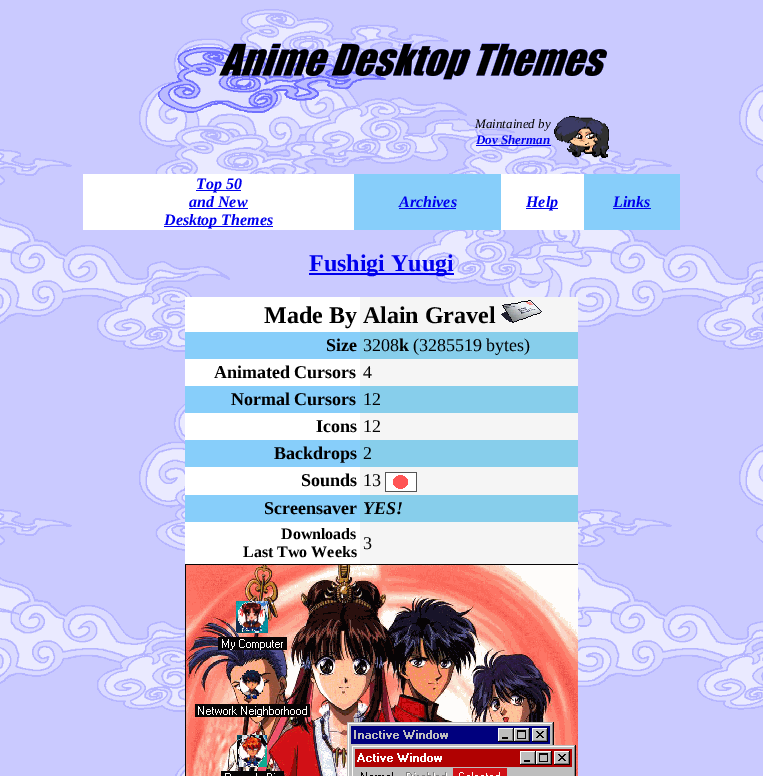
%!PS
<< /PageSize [763 776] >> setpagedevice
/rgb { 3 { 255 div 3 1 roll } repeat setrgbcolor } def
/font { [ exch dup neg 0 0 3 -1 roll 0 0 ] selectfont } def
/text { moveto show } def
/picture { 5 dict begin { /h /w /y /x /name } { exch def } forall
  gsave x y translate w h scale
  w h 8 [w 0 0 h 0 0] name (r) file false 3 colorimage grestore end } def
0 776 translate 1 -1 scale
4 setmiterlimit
255 255 255 rgb
0 0 763 776 rectfill
(img_01.rgb) 0 0 763 776 picture
(img_02.rgb) 158 43 449 70 picture
(img_03.rgb) 554 116 55 42 picture
0 0 238 rgb
476 145 75 1 rectfill
255 255 255 rgb
83 174 271 56 rectfill
0 0 238 rgb
196 190 45 1 rectfill
189 208 59 1 rectfill
164 226 109 1 rectfill
135 206 250 rgb
354 174 147 56 rectfill
0 0 238 rgb
399 208 57 1 rectfill
255 255 255 rgb
501 174 83 56 rectfill
0 0 238 rgb
526 208 32 1 rectfill
135 206 250 rgb
584 174 96 56 rectfill
0 0 238 rgb
613 208 38 1 rectfill
309 273 145 2 rectfill
245 245 245 rgb
360 297 218 35 rectfill
(img_04.rgb) 501 300 41 23 picture
255 255 255 rgb
185 297 175 35 rectfill
135 206 250 rgb
185 332 175 27 rectfill
135 206 235 rgb
360 332 218 27 rectfill
255 255 255 rgb
185 359 175 27 rectfill
245 245 245 rgb
360 359 218 27 rectfill
135 206 250 rgb
185 386 175 27 rectfill
135 206 235 rgb
360 386 218 27 rectfill
255 255 255 rgb
185 413 175 27 rectfill
245 245 245 rgb
360 413 218 27 rectfill
135 206 250 rgb
185 440 175 27 rectfill
135 206 235 rgb
360 440 218 27 rectfill
255 255 255 rgb
185 467 175 28 rectfill
245 245 245 rgb
360 467 218 28 rectfill
(img_05.rgb) 385 472 32 20 picture
135 206 250 rgb
185 495 175 27 rectfill
135 206 235 rgb
360 495 218 27 rectfill
255 255 255 rgb
185 522 175 42 rectfill
245 245 245 rgb
360 522 218 42 rectfill
(img_06.rgb) 185 564 393 212 picture
/LiberationSerif-Italic 13 font
0 0 0 rgb
(Maintained by) 475 128 text
/LiberationSerif-BoldItalic 13 font
0 0 238 rgb
(Dov Sherman) 476 144 text
/LiberationSerif-BoldItalic 16 font
(Top 50) 196 189 text
(and New) 189 207 text
(Desktop Themes) 164 225 text
(Archives) 399 207 text
(Help) 526 207 text
(Links) 613 207 text
/LiberationSerif-Bold 24 font
(Fushigi Yuugi) 309 271 text
0 0 0 rgb
(Made By Alain Gravel) 264 323 text
/LiberationSerif-Bold 18 font
(Size) 326 351 text
/LiberationSerif-Regular 18 font
(3208) 363 351 text
/LiberationSerif-Bold 18 font
(k) 399 351 text
/LiberationSerif-Regular 18 font
(\(3285519 bytes\)) 413 351 text
/LiberationSerif-Bold 18 font
(Animated Cursors) 214 378 text
/LiberationSerif-Regular 18 font
(4) 363 378 text
/LiberationSerif-Bold 18 font
(Normal Cursors) 231 405 text
/LiberationSerif-Regular 18 font
(12) 363 405 text
/LiberationSerif-Bold 18 font
(Icons) 316 432 text
/LiberationSerif-Regular 18 font
(12) 363 432 text
/LiberationSerif-Bold 18 font
(Backdrops) 274 459 text
/LiberationSerif-Regular 18 font
(2) 363 459 text
/LiberationSerif-Bold 18 font
(Sounds) 301 486 text
/LiberationSerif-Regular 18 font
(13) 363 486 text
/LiberationSerif-Bold 18 font
(Screensaver) 264 514 text
/LiberationSerif-BoldItalic 18 font
(YES!) 363 514 text
/LiberationSerif-Bold 16 font
(Downloads) 281 539 text
(Last Two Weeks) 243 557 text
/LiberationSerif-Regular 18 font
(3) 363 549 text
showpage
